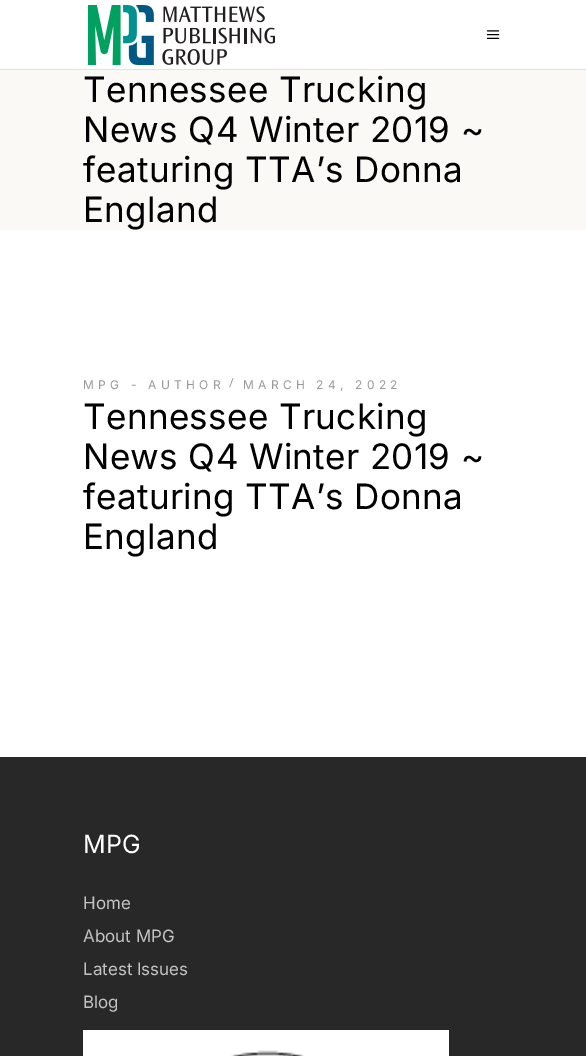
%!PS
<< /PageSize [586 1056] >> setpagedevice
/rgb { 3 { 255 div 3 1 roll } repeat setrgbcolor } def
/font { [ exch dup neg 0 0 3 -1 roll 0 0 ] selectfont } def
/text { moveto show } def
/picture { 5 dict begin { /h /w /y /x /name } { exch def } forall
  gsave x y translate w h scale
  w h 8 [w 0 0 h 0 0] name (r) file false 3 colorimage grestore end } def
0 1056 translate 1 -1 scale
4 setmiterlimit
255 255 255 rgb
0 0 586 1056 rectfill
225 225 225 rgb
0 69 586 1 rectfill
(img_01.rgb) 88 5 187 60 picture
(img_02.rgb) 486 30 14 9 picture
251 249 246 rgb
0 70 586 160 rectfill
40 40 40 rgb
0 757 586 299 rectfill
(img_03.rgb) 83 1030 366 26 picture
/Inter-Regular 35 font
0 0 0 rgb
83 102 moveto 0.35 0 (Tennessee Trucking) ashow
83 142 moveto 0.35 0 (News Q4 Winter 2019 ~) ashow
83 182 moveto 0.35 0 (featuring TTA’s Donna) ashow
83 222 moveto 0.35 0 (England) ashow
/Inter-Regular 12 font
153 153 153 rgb
83 389 moveto 4.25 0 (MPG - AUTHOR) ashow
/JosefinSans-Regular 12 font
229 387 moveto 4.25 0 (/) ashow
/Inter-Regular 12 font
243 389 moveto 4.25 0 (MARCH 24, 2022) ashow
/Inter-Regular 35 font
0 0 0 rgb
83 429 moveto 0.35 0 (Tennessee Trucking) ashow
83 469 moveto 0.35 0 (News Q4 Winter 2019 ~) ashow
83 509 moveto 0.35 0 (featuring TTA’s Donna) ashow
83 549 moveto 0.35 0 (England) ashow
/Inter-Regular 25 font
255 255 255 rgb
(MPG) 83 853 text
/Inter-Regular 17 font
196 196 196 rgb
(Home) 83 909 text
(About MPG) 83 942 text
(Latest Issues) 83 975 text
(Blog) 83 1008 text
showpage
